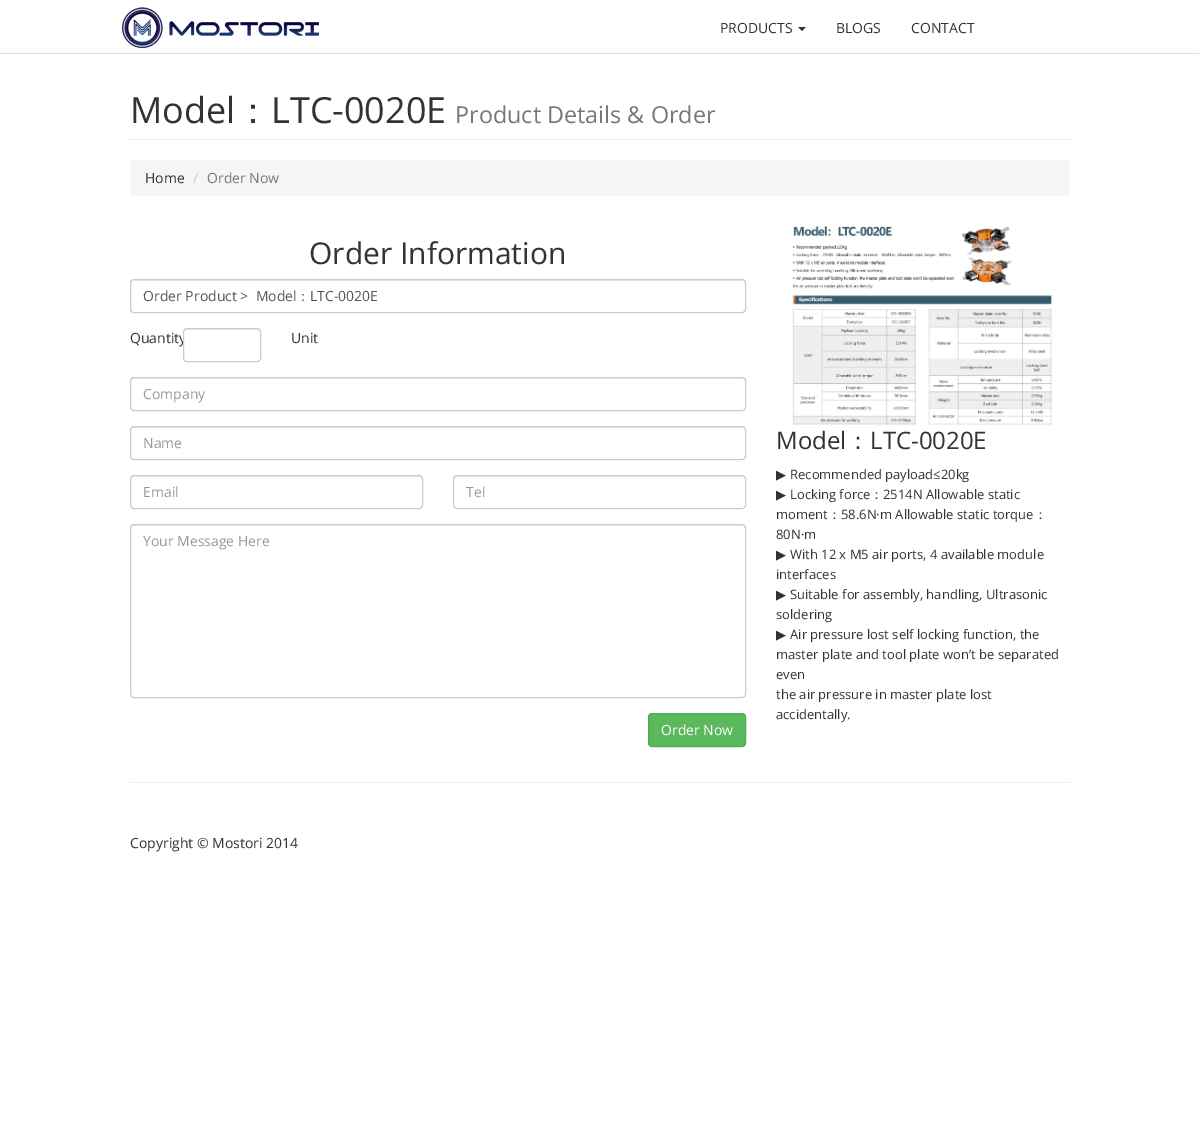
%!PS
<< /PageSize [1199 1127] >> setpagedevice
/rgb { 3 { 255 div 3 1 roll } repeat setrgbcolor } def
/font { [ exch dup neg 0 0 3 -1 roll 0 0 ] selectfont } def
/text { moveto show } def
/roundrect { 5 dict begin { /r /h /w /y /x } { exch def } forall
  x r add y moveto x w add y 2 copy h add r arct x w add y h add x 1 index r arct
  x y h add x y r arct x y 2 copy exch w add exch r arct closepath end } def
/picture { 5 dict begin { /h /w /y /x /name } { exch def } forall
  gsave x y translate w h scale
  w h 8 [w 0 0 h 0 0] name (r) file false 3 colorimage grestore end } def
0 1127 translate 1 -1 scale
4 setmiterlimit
255 255 255 rgb
0 0 1199 1127 rectfill
221 221 221 rgb
0 53 1199 1 rectfill
(img_01.rgb) 122 7 197 41 picture
51 51 51 rgb
798 27 moveto 8 0 rlineto -4 4 rlineto closepath fill
238 238 238 rgb
130 139 940 1 rectfill
245 245 245 rgb
130 160 940 36 4 roundrect fill
236 236 236 rgb
134 281 moveto 608 0 rlineto 2 0 3 1 3 3 rcurveto 0 -1 rlineto 0 -2 -1 -3 -3 -3 rcurveto -608 0 rlineto -2 0 -3 1 -3 3 rcurveto 0 1 rlineto 0 -2 1 -3 3 -3 rcurveto closepath fill
204 204 204 rgb
130.5 279.5 615 33 3.5 roundrect stroke
236 236 236 rgb
134 379 moveto 608 0 rlineto 2 0 3 1 3 3 rcurveto 0 -1 rlineto 0 -2 -1 -3 -3 -3 rcurveto -608 0 rlineto -2 0 -3 1 -3 3 rcurveto 0 1 rlineto 0 -2 1 -3 3 -3 rcurveto closepath fill
204 204 204 rgb
130.5 377.5 615 33 3.5 roundrect stroke
236 236 236 rgb
134 428 moveto 608 0 rlineto 2 0 3 1 3 3 rcurveto 0 -1 rlineto 0 -2 -1 -3 -3 -3 rcurveto -608 0 rlineto -2 0 -3 1 -3 3 rcurveto 0 1 rlineto 0 -2 1 -3 3 -3 rcurveto closepath fill
204 204 204 rgb
130.5 426.5 615 33 3.5 roundrect stroke
236 236 236 rgb
134 477 moveto 285 0 rlineto 2 0 3 1 3 3 rcurveto 0 -2 -1 -4 -3 -4 rcurveto -285 0 rlineto -2 0 -3 2 -3 4 rcurveto 0 -2 1 -3 3 -3 rcurveto closepath fill
204 204 204 rgb
130.5 475.5 292 33 3.5 roundrect stroke
236 236 236 rgb
457 477 moveto 285 0 rlineto 2 0 3 1 3 3 rcurveto 0 -2 -1 -4 -3 -4 rcurveto -285 0 rlineto -2 0 -3 2 -3 4 rcurveto 0 -2 1 -3 3 -3 rcurveto closepath fill
204 204 204 rgb
453.5 475.5 292 33 3.5 roundrect stroke
236 236 236 rgb
134 526 moveto 608 0 rlineto 2 0 3 1 3 3 rcurveto 0 -1 rlineto 0 -2 -1 -3 -3 -3 rcurveto -608 0 rlineto -2 0 -3 1 -3 3 rcurveto 0 1 rlineto 0 -2 1 -3 3 -3 rcurveto closepath fill
204 204 204 rgb
130.5 524.5 615 173 3.5 roundrect stroke
92 184 92 rgb
648.5 713.5 97 33 3.5 roundrect gsave fill grestore
76 174 76 rgb
stroke
(img_02.rgb) 792 226 260 199 picture
238 238 238 rgb
130 782 940 1 rectfill
/OpenSans-Regular 14 font
51 51 51 rgb
(PRODUCTS) 720 33 text
(BLOGS) 836 33 text
(CONTACT) 911 33 text
/OpenSans-Regular 36 font
(Model) 130 123 text
/WenQuanYiZenHei-Medium 36 font
(：) 235 123 text
/OpenSans-Regular 36 font
(LTC-0020E) 271 123 text
/OpenSans-Regular 23.4 font
119 119 119 rgb
(Product Details & Order) 455 123 text
/OpenSans-Regular 14 font
51 51 51 rgb
(Home) 145 183 text
204 204 204 rgb
(/) 193 183 text
119 119 119 rgb
(Order Now) 207 183 text
/OpenSans-Regular 30 font
51 51 51 rgb
(Order Information) 309 264 text
/OpenSans-Regular 14 font
85 85 85 rgb
(Order Product >  Model) 143 301 text
/WenQuanYiZenHei-Medium 14 font
(：) 296 301 text
/OpenSans-Regular 14 font
(LTC-0020E) 310 301 text
51 51 51 rgb
(Quantity) 130 343 text
255 255 255 rgb
183 328 78 34 4 roundrect fill
236 236 236 rgb
187 330 moveto 70 0 rlineto 2 0 3 1 3 3 rcurveto 0 -7 -11 -4 -15 -4 rcurveto -46 0 rlineto -4 0 -15 -3 -15 4 rcurveto 0 -2 1 -3 3 -3 rcurveto closepath fill
204 204 204 rgb
183.5 328.5 77 33 3.5 roundrect stroke
51 51 51 rgb
(Unit) 291 343 text
153 153 153 rgb
(Company) 143 399 text
(Name) 143 448 text
(Email) 143 497 text
(Tel) 466 497 text
(Your Message Here) 143 546 text
255 255 255 rgb
(Order Now) 661 735 text
/OpenSans-Regular 24 font
51 51 51 rgb
(Model) 776 449 text
/WenQuanYiZenHei-Medium 24 font
(：) 846 449 text
/OpenSans-Regular 24 font
(LTC-0020E) 870 449 text
/DejaVuSans-Regular 13 font
(▶) 776 479 text
/OpenSans-Regular 13 font
(Recommended payload≤20kg) 790 479 text
/DejaVuSans-Regular 13 font
(▶) 776 499 text
/OpenSans-Regular 13 font
(Locking force) 790 499 text
/WenQuanYiZenHei-Medium 13 font
(：) 870 499 text
/OpenSans-Regular 13 font
(2514N Allowable static) 883 499 text
(moment) 776 519 text
/WenQuanYiZenHei-Medium 13 font
(：) 828 519 text
/OpenSans-Regular 13 font
(58.6N·m Allowable static torque) 841 519 text
/WenQuanYiZenHei-Medium 13 font
(：) 1034 519 text
/OpenSans-Regular 13 font
(80N·m) 776 539 text
/DejaVuSans-Regular 13 font
(▶) 776 559 text
/OpenSans-Regular 13 font
(With 12 x M5 air ports, 4 available module) 790 559 text
(interfaces) 776 579 text
/DejaVuSans-Regular 13 font
(▶) 776 599 text
/OpenSans-Regular 13 font
(Suitable for assembly, handling, Ultrasonic) 790 599 text
(soldering) 776 619 text
/DejaVuSans-Regular 13 font
(▶) 776 639 text
/OpenSans-Regular 13 font
(Air pressure lost self locking function, the) 790 639 text
(master plate and tool plate won’t be separated) 776 659 text
(even) 776 679 text
(the air pressure in master plate lost) 776 699 text
(accidentally.) 776 719 text
/OpenSans-Regular 14 font
(Copyright © Mostori 2014) 130 848 text
showpage
